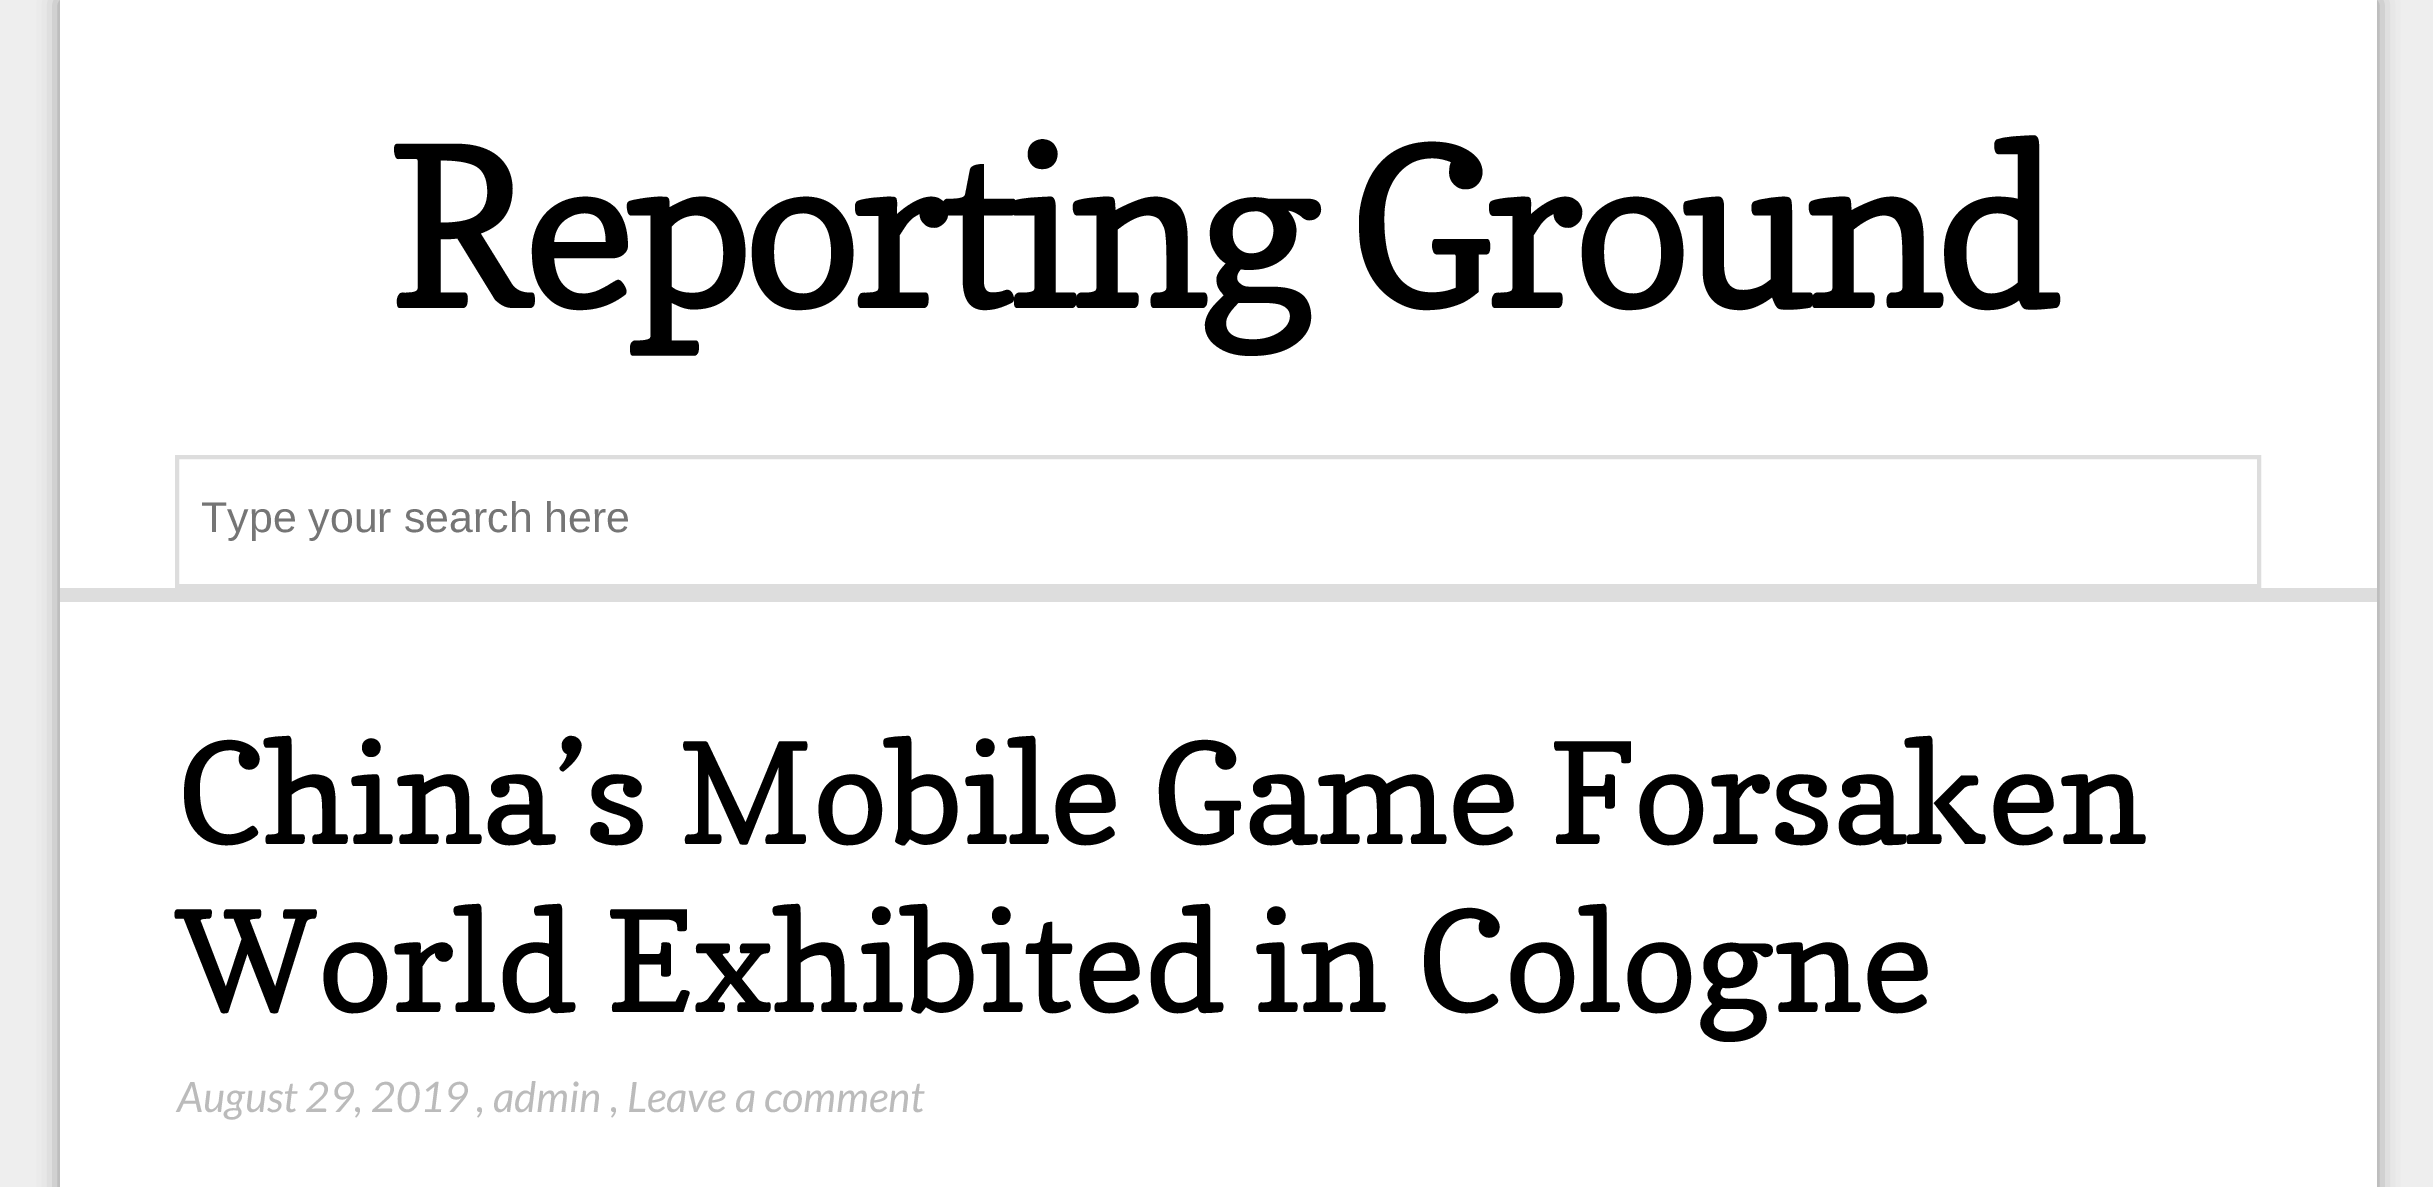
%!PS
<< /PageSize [2433 1187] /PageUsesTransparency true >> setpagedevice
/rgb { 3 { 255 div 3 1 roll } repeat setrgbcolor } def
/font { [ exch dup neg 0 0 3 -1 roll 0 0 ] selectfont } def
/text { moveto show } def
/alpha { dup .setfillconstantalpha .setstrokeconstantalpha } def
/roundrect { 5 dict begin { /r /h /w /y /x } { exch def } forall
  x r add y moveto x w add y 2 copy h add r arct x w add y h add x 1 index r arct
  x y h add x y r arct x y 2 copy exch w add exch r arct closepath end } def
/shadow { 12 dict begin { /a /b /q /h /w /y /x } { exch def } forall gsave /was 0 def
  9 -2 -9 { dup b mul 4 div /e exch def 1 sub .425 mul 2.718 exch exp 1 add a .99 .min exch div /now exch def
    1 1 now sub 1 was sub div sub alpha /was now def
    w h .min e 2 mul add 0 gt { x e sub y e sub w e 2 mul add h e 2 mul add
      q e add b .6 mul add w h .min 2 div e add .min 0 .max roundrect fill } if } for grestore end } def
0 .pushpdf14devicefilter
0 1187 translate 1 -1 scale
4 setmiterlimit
238 238 238 rgb
0 0 2433 1187 rectfill
0 0 0 rgb
60 0 2317 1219 0 10.5 0.4 shadow
255 255 255 rgb
60 0 2317 1187 rectfill
221 221 221 rgb
4 setlinewidth
177 457 2082 129 rectstroke
60 588 2317 14 rectfill
/Copse-Regular 224 font
0 0 0 rgb
386 308 moveto -11.25 0 (Reporting Ground) ashow
/LiberationSans-Regular 42.9 font
117 117 117 rgb
(Type your search here) 201 532 text
/Copse-Regular 140 font
0 0 0 rgb
(China’s Mobile Game Forsaken) 177 844 text
(World Exhibited in Cologne) 177 1012 text
/Lato-Italic 42 font
187 187 187 rgb
(August 29, 2019) 177 1112 text
(, admin , Leave a comment) 476 1112 text
.poppdf14devicefilter showpage
